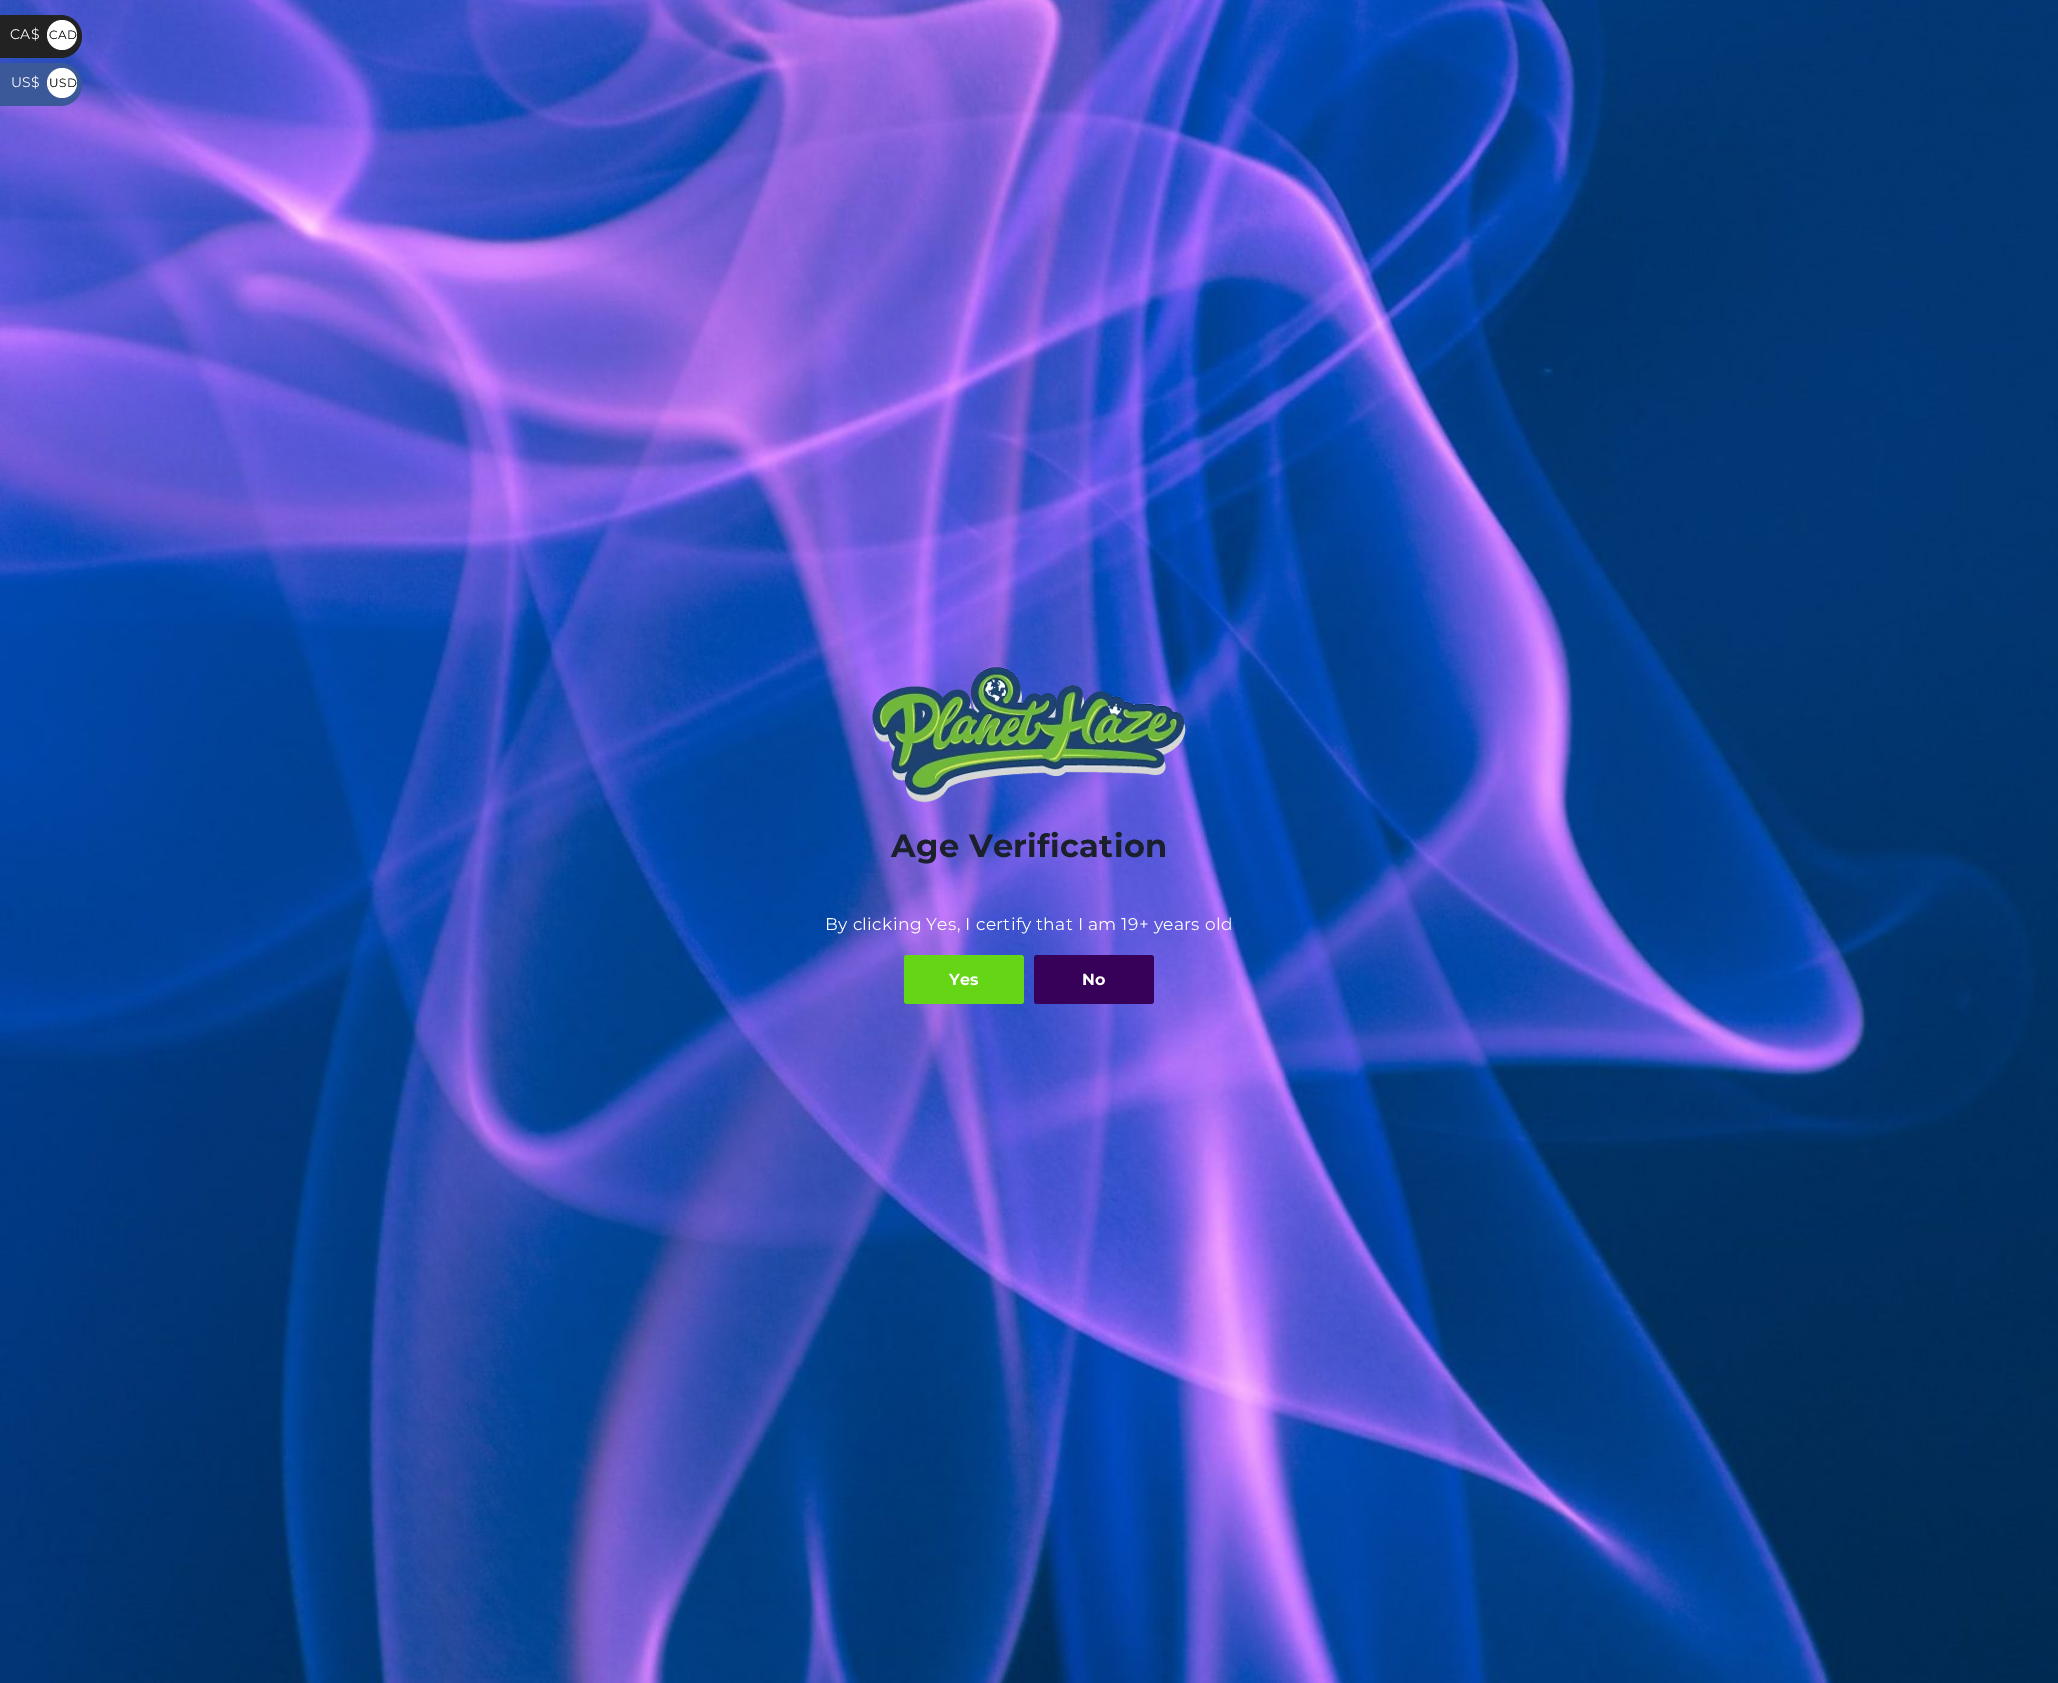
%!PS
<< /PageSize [2058 1683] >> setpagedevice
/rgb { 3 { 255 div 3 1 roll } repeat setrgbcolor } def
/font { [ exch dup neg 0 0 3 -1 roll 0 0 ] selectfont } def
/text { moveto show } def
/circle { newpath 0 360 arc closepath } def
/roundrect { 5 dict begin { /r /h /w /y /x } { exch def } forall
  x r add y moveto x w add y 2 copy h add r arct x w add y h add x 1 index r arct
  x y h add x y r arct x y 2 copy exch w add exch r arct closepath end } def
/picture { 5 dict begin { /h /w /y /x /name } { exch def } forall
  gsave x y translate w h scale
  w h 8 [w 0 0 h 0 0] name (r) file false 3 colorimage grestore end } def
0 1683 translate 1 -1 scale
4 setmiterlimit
255 255 255 rgb
0 0 2058 1683 rectfill
(img_01.rgb) 0 0 2058 1683 picture
34 34 34 rgb
-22 15 moveto 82.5 0 rlineto 12 0 21.5 9.5 21.5 21.5 rcurveto 0 12 -9.5 21.5 -21.5 21.5 rcurveto -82.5 0 rlineto closepath fill
255 255 255 rgb
62 35 15 circle fill
59 89 152 rgb
-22 63 moveto 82.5 0 rlineto 12 0 21.5 9.5 21.5 21.5 rcurveto 0 12 -9.5 21.5 -21.5 21.5 rcurveto -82.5 0 rlineto closepath fill
255 255 255 rgb
62 83 15 circle fill
(img_02.rgb) 872 666 314 137 picture
101 214 21 rgb
904 955 120 49 3 roundrect fill
55 0 89 rgb
1034 955 120 49 3 roundrect fill
/Montserrat-Regular 14 font
255 255 255 rgb
10 39 moveto 0.35 0 (CA$) ashow
/Montserrat-Regular 12 font
0 0 0 rgb
49 39 moveto 0.35 0 (CAD) ashow
/Montserrat-Regular 14 font
255 255 255 rgb
11 87 moveto 0.35 0 (US$) ashow
/Montserrat-Regular 12 font
0 0 0 rgb
49 87 moveto 0.35 0 (USD) ashow
/Montserrat-Bold 32 font
26 32 44 rgb
891 857 moveto 0.35 0 (Age Verification) ashow
/Montserrat-Regular 17 font
255 255 255 rgb
825 930 moveto 0.35 0 (By clicking Yes, I certify that I am 19+ years old) ashow
/Montserrat-Bold 16 font
(Yes) 949 985 text
(No) 1082 985 text
showpage
